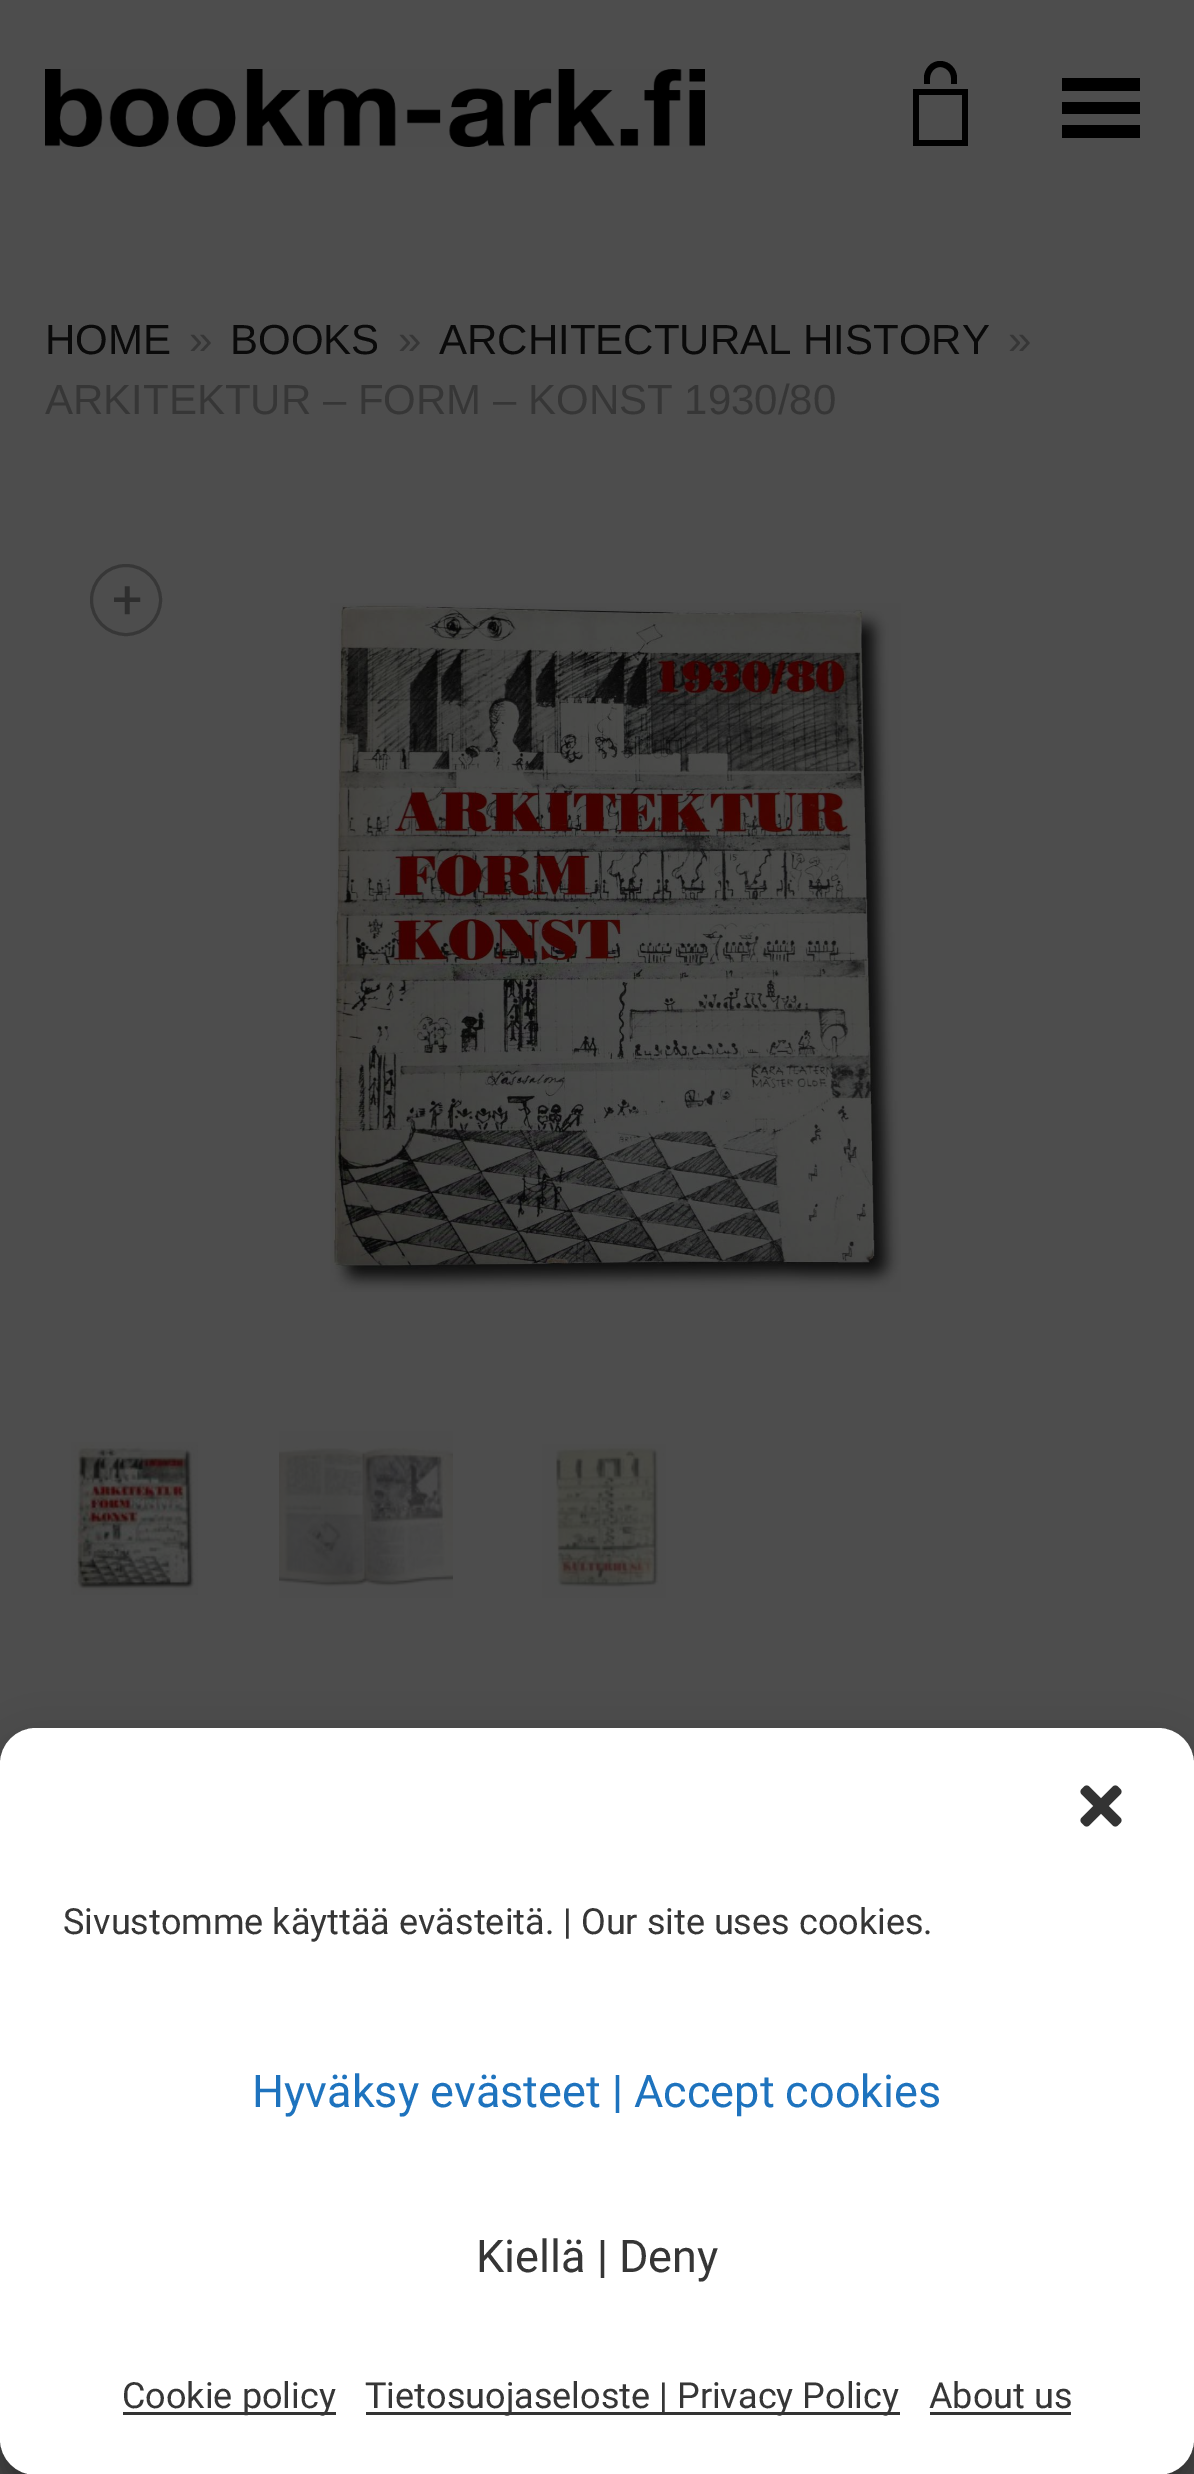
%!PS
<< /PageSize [1194 2474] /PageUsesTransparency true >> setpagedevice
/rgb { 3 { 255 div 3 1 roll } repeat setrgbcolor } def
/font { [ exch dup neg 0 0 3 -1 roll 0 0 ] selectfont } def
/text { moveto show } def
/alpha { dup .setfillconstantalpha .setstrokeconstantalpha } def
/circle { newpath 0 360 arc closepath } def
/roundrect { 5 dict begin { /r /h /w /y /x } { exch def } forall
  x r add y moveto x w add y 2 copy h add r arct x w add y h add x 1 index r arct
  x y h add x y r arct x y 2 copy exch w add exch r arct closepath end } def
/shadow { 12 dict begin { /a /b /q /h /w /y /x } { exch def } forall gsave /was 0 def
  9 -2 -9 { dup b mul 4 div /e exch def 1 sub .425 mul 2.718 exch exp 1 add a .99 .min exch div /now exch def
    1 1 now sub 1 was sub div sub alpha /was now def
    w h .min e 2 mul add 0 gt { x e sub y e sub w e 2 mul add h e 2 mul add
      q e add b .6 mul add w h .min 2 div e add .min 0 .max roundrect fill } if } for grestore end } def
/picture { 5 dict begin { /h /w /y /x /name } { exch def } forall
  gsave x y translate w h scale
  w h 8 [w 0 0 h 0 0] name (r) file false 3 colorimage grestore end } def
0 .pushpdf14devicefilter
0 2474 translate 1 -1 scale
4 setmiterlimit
77 77 77 rgb
0 0 1194 2474 rectfill
(img_01.rgb) 45 69 660 78 picture
0 0 0 rgb
962 95 moveto 0 45 rlineto -43 0 rlineto 0 -45 rlineto 43 0 rlineto 968 89 moveto -55 0 rlineto 0 57 rlineto 55 0 rlineto closepath 930 84 moveto 0 -6 rlineto 0 -6 5 -11 10 -11 rcurveto 6 0 11 5 11 11 rcurveto 0 6 rlineto 6 0 rlineto 0 -6 rlineto 0 -9 -7 -17 -17 -17 rcurveto -9 0 -16 8 -16 17 rcurveto 0 6 rlineto closepath fill
1140 91 moveto -78 0 rlineto 0 -13 rlineto 78 0 rlineto closepath 1140 102 moveto -78 0 rlineto 0 12 rlineto 78 0 rlineto closepath 1140 125 moveto -78 0 rlineto 0 13 rlineto 78 0 rlineto closepath fill
55 55 55 rgb
3 setlinewidth
126 600 34.5 circle stroke
(img_02.rgb) 330 603 571 689 picture
(img_03.rgb) 71 1442 127 153 picture
(img_04.rgb) 279 1431 174 167 picture
(img_05.rgb) 542 1444 124 154 picture
0 0 0 rgb
0 1746 1194 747 36 9 0.23 shadow
0 1758 1194 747 36 30 0.19 shadow
255 255 255 rgb
1.5 1729.5 1191 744 34.5 roundrect gsave fill grestore
stroke
(img_06.rgb) 1080 1785 42 42 picture
51 51 51 rgb
123 2412 213 3 rectfill
366 2412 534 3 rectfill
930 2412 141 3 rectfill
/Arimo-Regular 42 font
10 10 10 rgb
(HOME) 45 354 text
54 54 54 rgb
(») 189 354 text
10 10 10 rgb
(BOOKS) 230 354 text
54 54 54 rgb
(») 398 354 text
10 10 10 rgb
(ARCHITECTURAL HISTORY) 439 354 text
54 54 54 rgb
(») 1008 354 text
(ARKITEKTUR – FORM – KONST 1930/80) 45 414 text
/Roboto-Regular 54 font
46 46 46 rgb
(+) 112 618 text
/Roboto-Regular 36 font
54 54 54 rgb
(Sivustomme käyttää evästeitä. | Our site uses cookies.) 63 1934 text
/Roboto-Regular 45 font
30 115 190 rgb
(Hyväksy evästeet | Accept cookies) 252 2107 text
54 54 54 rgb
(Kiellä | Deny) 476 2272 text
/Roboto-Regular 36 font
(Cookie policy) 122 2408 text
(Tietosuojaseloste | Privacy Policy) 365 2408 text
(About us) 929 2408 text
.poppdf14devicefilter showpage
